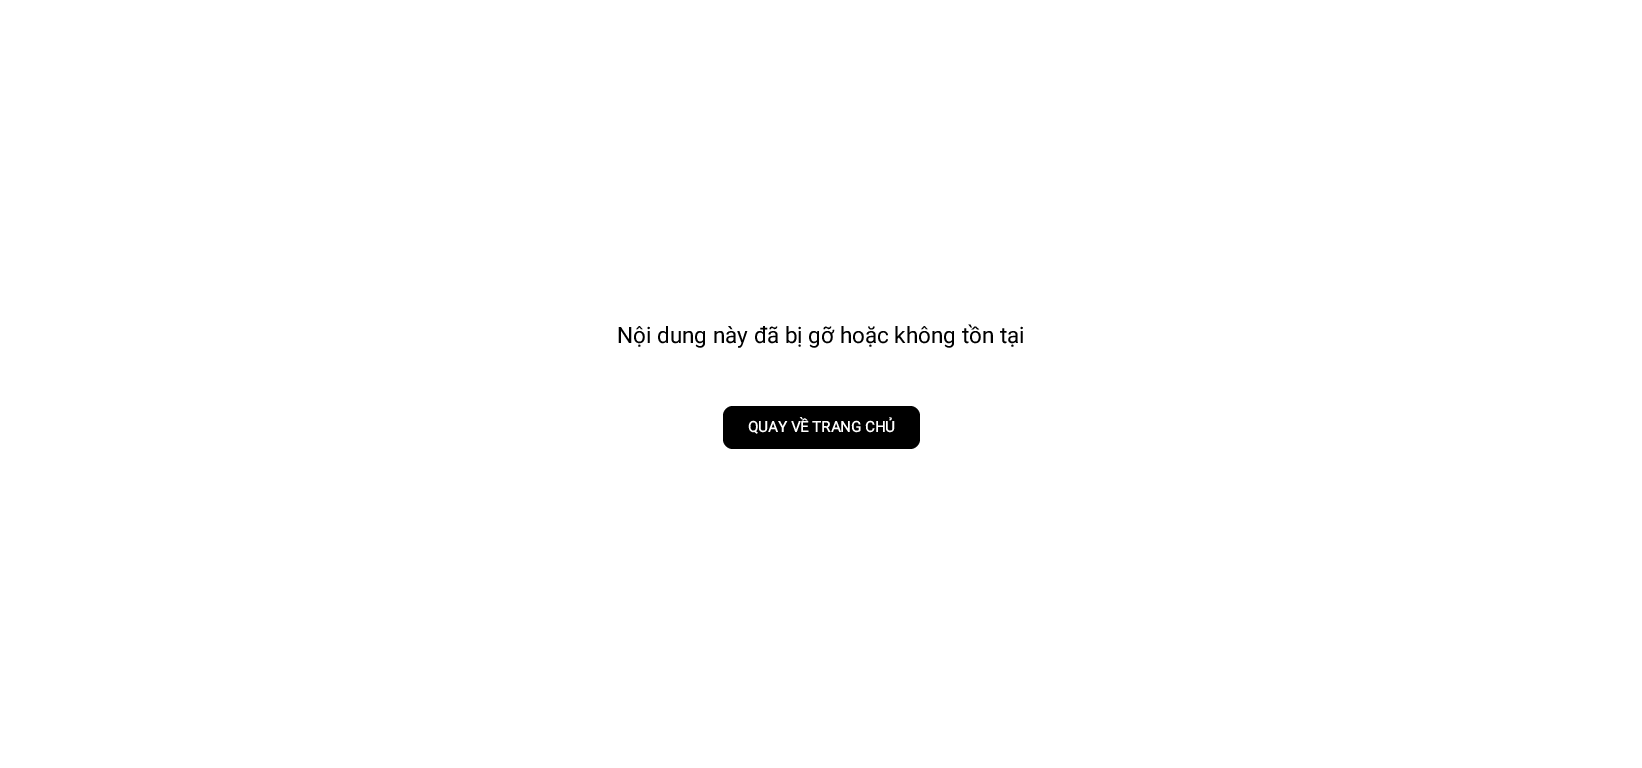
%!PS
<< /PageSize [1642 768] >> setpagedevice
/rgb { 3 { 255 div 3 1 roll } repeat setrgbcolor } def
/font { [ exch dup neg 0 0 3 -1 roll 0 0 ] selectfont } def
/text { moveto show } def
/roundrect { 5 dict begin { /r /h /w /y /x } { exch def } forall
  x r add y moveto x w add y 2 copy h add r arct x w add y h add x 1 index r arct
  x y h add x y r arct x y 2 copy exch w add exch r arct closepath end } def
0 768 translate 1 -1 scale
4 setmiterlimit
255 255 255 rgb
0 0 1642 768 rectfill
0 0 0 rgb
723 406 197 43 10 roundrect fill
/Roboto-Regular 22.5 font
(Nội dung này đã bị gỡ hoặc không tồn tại) 617 343 text
/Roboto-Bold 15 font
255 255 255 rgb
(QUAY VỀ TRANG CHỦ) 748 432 text
showpage
